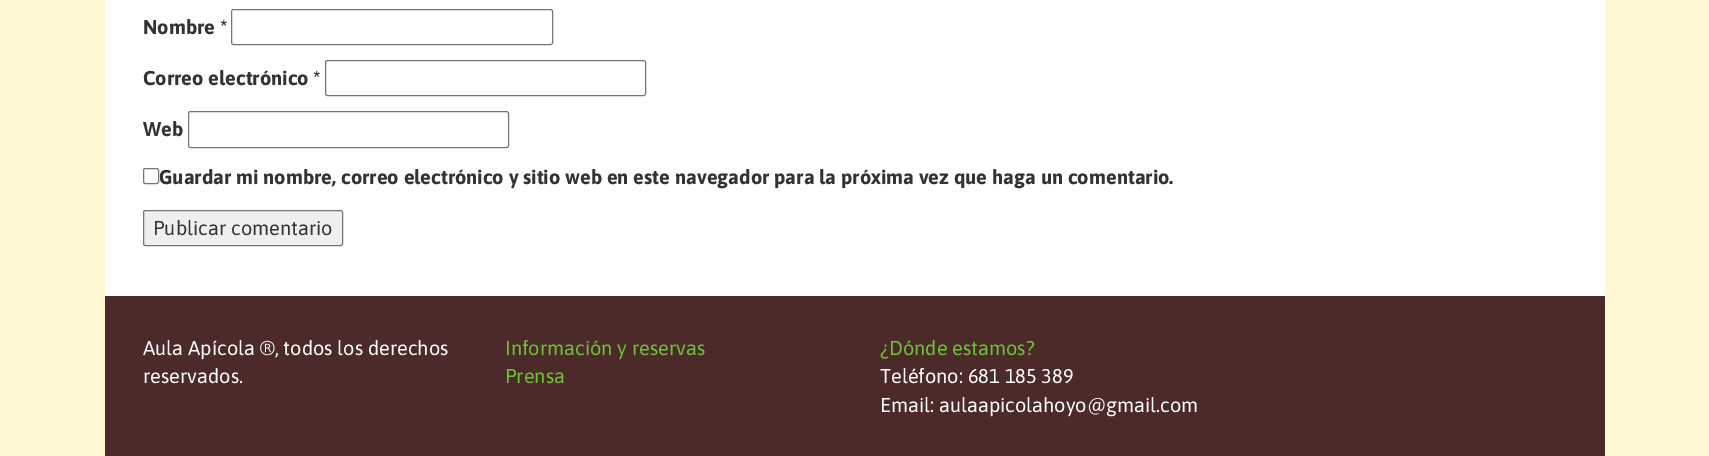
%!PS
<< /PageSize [1709 456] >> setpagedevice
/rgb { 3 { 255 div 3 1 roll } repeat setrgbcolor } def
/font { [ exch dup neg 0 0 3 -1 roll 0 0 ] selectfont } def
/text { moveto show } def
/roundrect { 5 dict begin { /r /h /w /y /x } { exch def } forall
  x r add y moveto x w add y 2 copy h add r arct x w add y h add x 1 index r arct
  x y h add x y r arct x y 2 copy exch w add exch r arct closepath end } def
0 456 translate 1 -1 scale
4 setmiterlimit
255 247 210 rgb
0 0 1709 456 rectfill
255 255 255 rgb
105 0 1500 296 rectfill
118 118 118 rgb
231.5 9.5 321 35 2 roundrect stroke
325.5 60.5 320 35 2 roundrect stroke
188.5 111.5 320 36 2 roundrect stroke
143.5 168.5 15 15 2 roundrect stroke
239 239 239 rgb
143.5 210.5 199 35 2 roundrect gsave fill grestore
118 118 118 rgb
stroke
76 42 42 rgb
105 296 1500 160 rectfill
/Asap-Bold 20 font
51 51 51 rgb
(Nombre *) 143 34 text
(Correo electrónico *) 143 85 text
(Web) 143 136 text
(Guardar mi nombre, correo electrónico y sitio web en este navegador para la próxima vez que haga un comentario.) 159 184 text
/Asap-Regular 20 font
(Publicar comentario) 153 235 text
255 255 255 rgb
(Aula Apícola ®, todos los derechos) 143 355 text
(reservados.) 143 383 text
108 195 53 rgb
(Información y reservas) 505 355 text
(Prensa) 505 383 text
(¿Dónde estamos?) 880 355 text
255 255 255 rgb
(Teléfono: 681 185 389) 880 383 text
(Email: aulaapicolahoyo@gmail.com) 880 412 text
showpage
